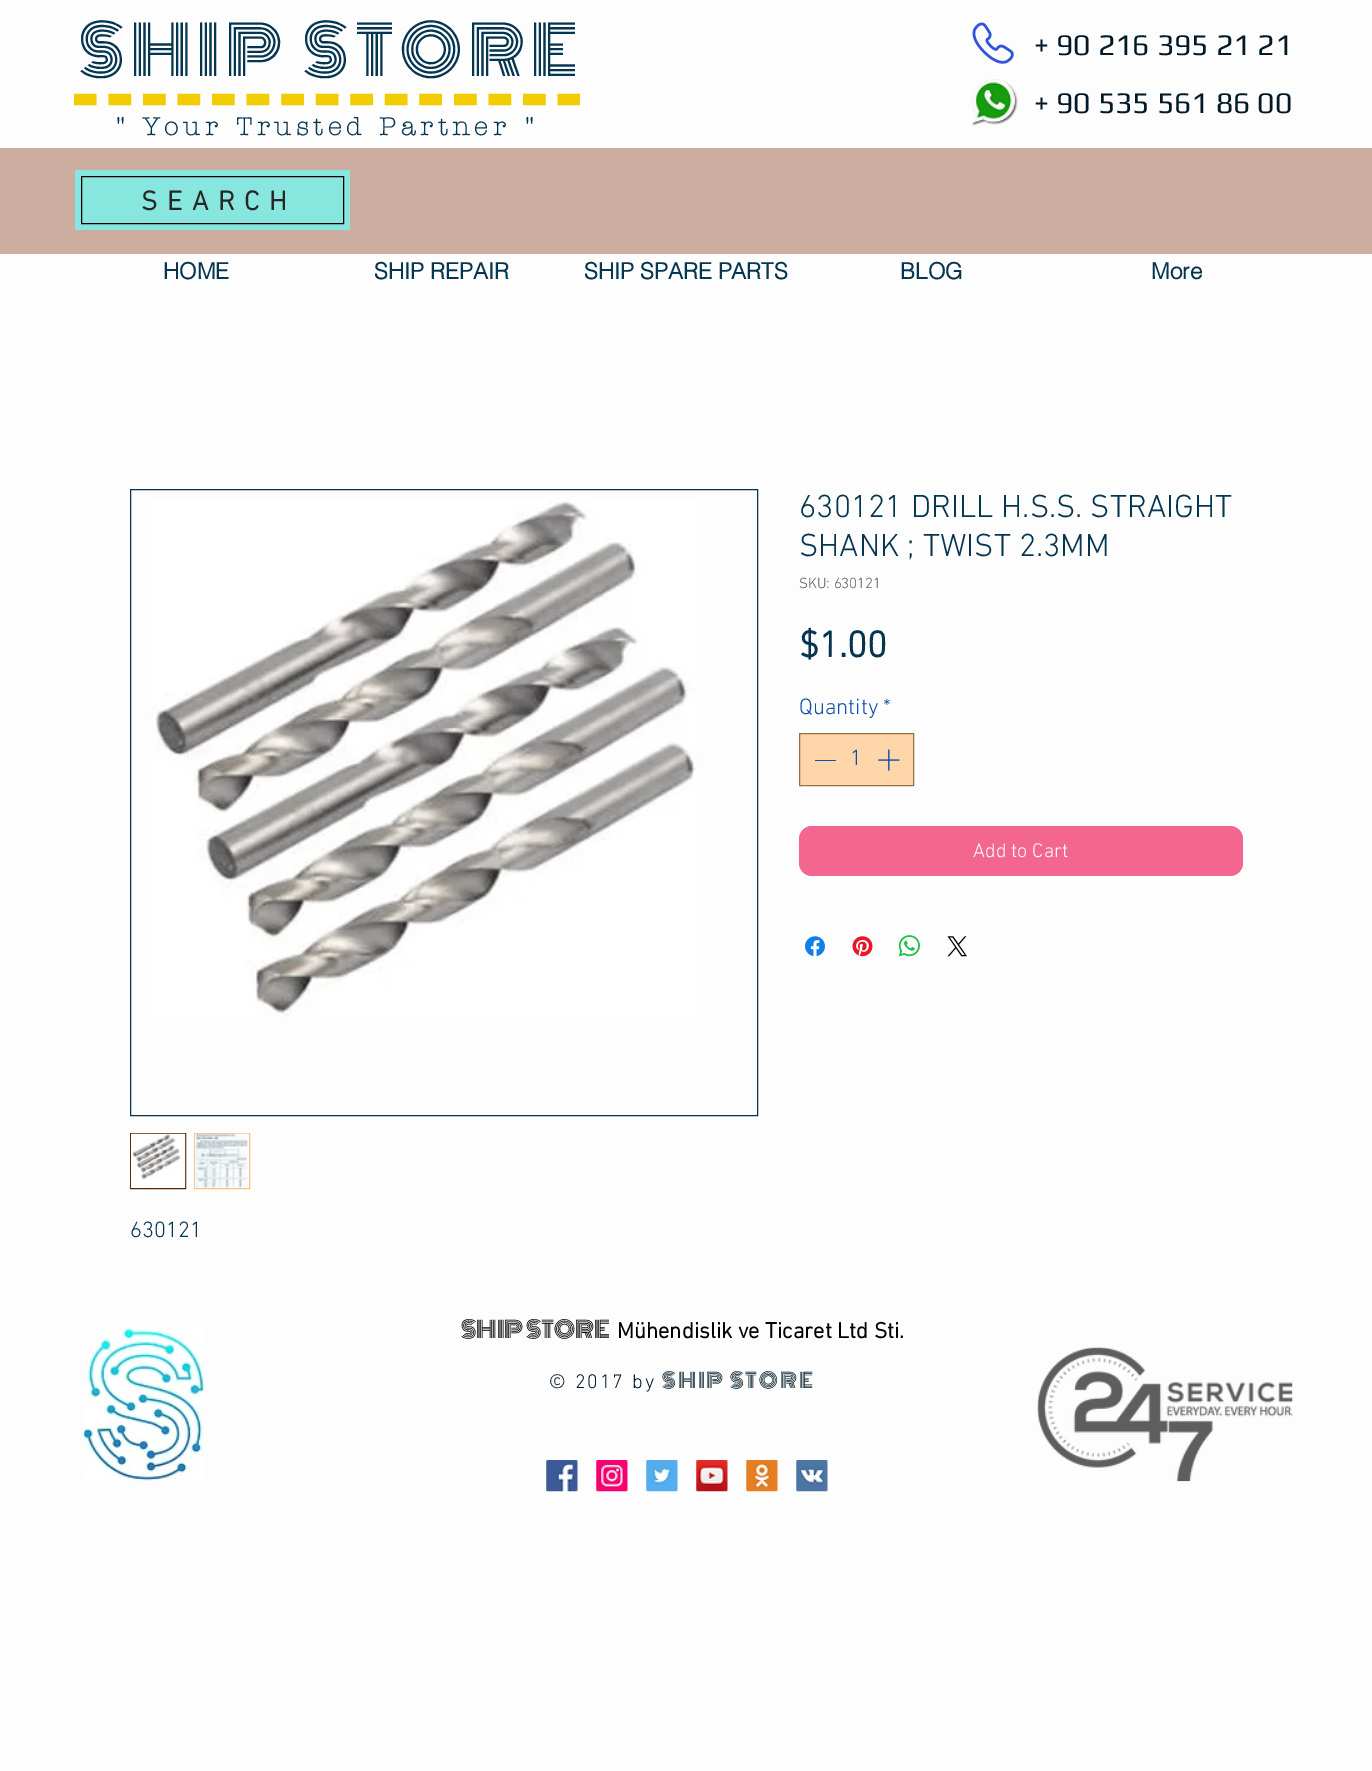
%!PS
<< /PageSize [1372 1771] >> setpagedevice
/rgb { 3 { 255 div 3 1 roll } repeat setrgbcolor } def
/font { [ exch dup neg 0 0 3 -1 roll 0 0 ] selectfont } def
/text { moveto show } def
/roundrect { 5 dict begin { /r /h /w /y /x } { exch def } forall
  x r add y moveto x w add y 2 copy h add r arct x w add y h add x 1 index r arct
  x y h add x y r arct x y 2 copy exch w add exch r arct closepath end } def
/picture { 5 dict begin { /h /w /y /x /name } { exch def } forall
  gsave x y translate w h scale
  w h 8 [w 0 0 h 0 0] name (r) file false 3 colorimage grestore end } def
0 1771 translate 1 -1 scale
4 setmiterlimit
254 253 253 rgb
0 0 1372 1771 rectfill
(img_01.rgb) 972 22 42 42 picture
241 204 1 rgb
11.2 setlinewidth
[22.5 12.05] 0 setdash
74 99.5 moveto 506 0 rlineto stroke
(img_02.rgb) 971 79 47 47 picture
204 173 159 rgb
0 148 1372 106 rectfill
135 230 222 rgb
75 170 275 60 rectfill
0 0 0 rgb
1 setlinewidth
[] 0 setdash
81.5 176.5 262 47 rectstroke
255 213 170 rgb
799.5 733.5 moveto 114 0 rlineto 0 52 rlineto -114 0 rlineto closepath gsave fill grestore
152 111 68 rgb
stroke
15 80 170 rgb
815 760 21 1 rectfill
(img_03.rgb) 878 749 22 22 picture
242 102 143 rgb
799 826 444 50 13 roundrect fill
(img_04.rgb) 805 936 20 21 picture
(img_05.rgb) 852 936 21 21 picture
(img_06.rgb) 898 935 22 22 picture
(img_07.rgb) 947 936 20 21 picture
4 53 81 rgb
130.5 489.5 627 626 rectstroke
(img_08.rgb) 151 501 546 517 picture
84 43 0 rgb
130.5 1133.5 55 55 rectstroke
(img_09.rgb) 131 1133 55 55 picture
255 193 127 rgb
194.5 1133.5 55 55 rectstroke
(img_10.rgb) 194 1133 56 55 picture
(img_11.rgb) 83 1327 121 154 picture
(img_12.rgb) 1037 1347 256 135 picture
(img_13.rgb) 546 1460 32 32 picture
(img_14.rgb) 596 1460 32 32 picture
(img_15.rgb) 646 1460 32 32 picture
(img_16.rgb) 696 1460 32 32 picture
(img_17.rgb) 746 1460 32 32 picture
(img_18.rgb) 796 1460 32 32 picture
/Monoton-Regular 66.25 font
4 53 81 rgb
79 76 moveto 6.6 0 (SHIP STORE) ashow
/Play-Regular 30 font
2 26 40 rgb
(+ 90 216 395 21 21) 1034 55 text
(+ 90 535 561 86 00) 1034 113 text
/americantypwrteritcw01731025-Bold 25 font
4 53 81 rgb
115 135 moveto 5 0 (" Your Trusted Partner ") ashow
/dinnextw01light-Bold 27.5 font
40 38 38 rgb
141 210 moveto 9.5 0 (SEARCH) ashow
/helvetica-Bold 22.5 font
4 53 81 rgb
(HOME) 163 279 text
(SHIP REPAIR) 374 279 text
(SHIP SPARE PARTS) 584 279 text
(BLOG) 900 279 text
(More) 1151 279 text
/dinnextw01light-Light 32.5 font
(630121 DRILL H.S.S. STRAIGHT) 799 517 text
(SHANK ; TWIST 2.3MM) 799 556 text
/dinnextw01light-Light 15 font
92 92 92 rgb
(SKU: 630121) 799 588 text
/dinnextw01light-Bold 37.5 font
4 53 81 rgb
($1.00) 799 657 text
/dinnextw01light-Light 22.5 font
15 80 170 rgb
(Quantity) 799 714 text
(*) 883 714 text
(1) 850 765 text
/dinnextw01light-Light 20 font
254 253 253 rgb
(Add to Cart) 973 857 text
/dinnextw01light-Light 22.5 font
4 53 81 rgb
(630121) 130 1237 text
/Monoton-Regular 22.5 font
0 0 0 rgb
(SHIP STORE) 461 1338 text
/dinnextw01light-Bold 22.5 font
(Mühendislik ve Ticaret Ltd Sti.) 617 1338 text
/dinnextw01light-Light 20 font
2 26 40 rgb
549 1388 moveto 2 0 (© 2017 by) ashow
/Monoton-Regular 20 font
662 1388 moveto 2 0 (SHIP STORE) ashow
showpage
